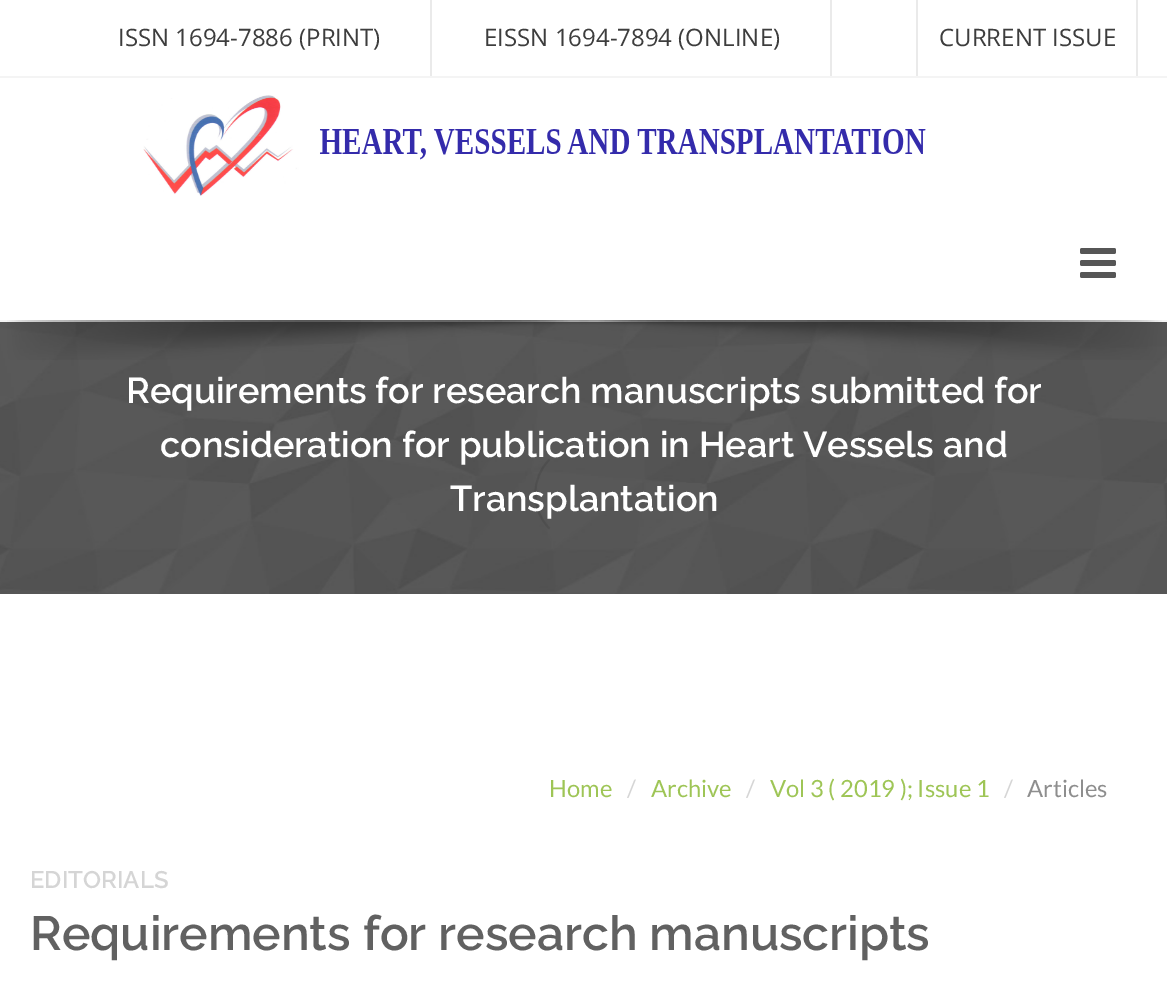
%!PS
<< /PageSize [1167 987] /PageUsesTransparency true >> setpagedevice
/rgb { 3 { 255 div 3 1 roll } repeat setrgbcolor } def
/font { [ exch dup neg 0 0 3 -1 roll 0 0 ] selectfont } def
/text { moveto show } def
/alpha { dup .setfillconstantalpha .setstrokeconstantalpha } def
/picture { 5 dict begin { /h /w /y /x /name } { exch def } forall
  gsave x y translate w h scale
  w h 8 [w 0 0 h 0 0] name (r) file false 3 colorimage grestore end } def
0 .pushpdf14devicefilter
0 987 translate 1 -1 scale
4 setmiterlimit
255 255 255 rgb
0 0 1167 987 rectfill
244 244 244 rgb
0 76 1167 2 rectfill
234 234 234 rgb
430 0 2 76 rectfill
830 0 2 76 rectfill
916 0 2 76 rectfill
1136 0 2 76 rectfill
(img_01.rgb) 143 95 783 101 picture
244 244 244 rgb
0 320 1167 2 rectfill
(img_02.rgb) 1080 248 36 30 picture
(img_04.rgb) 0 322 1167 272 picture
(img_03.rgb) 7 320 1155 40 picture
0.09 alpha
0 0 0 rgb
2 setlinewidth
549.5 528.5 moveto -19 -18.5 -19 -50.5 0 -69 rcurveto stroke
/OpenSans-Regular 24 font
1 alpha
61 61 61 rgb
(ISSN 1694-7886 \(PRINT\)) 118 46 text
(EISSN 1694-7894 \(ONLINE\)) 484 46 text
(CURRENT ISSUE) 939 46 text
/Raleway-SemiBold 36 font
255 255 255 rgb
(Requirements for research manuscripts submitted for) 126 403 text
(consideration for publication in Heart Vessels and) 160 457 text
(Transplantation) 450 511 text
/Lato-Regular 23.75 font
158 197 86 rgb
(Home) 549 797 text
213 213 213 rgb
(/) 627 797 text
158 197 86 rgb
(Archive) 651 797 text
213 213 213 rgb
(/) 746 797 text
158 197 86 rgb
(Vol 3 \( 2019 \); Issue 1) 770 797 text
213 213 213 rgb
(/) 1004 797 text
142 142 142 rgb
(Articles) 1027 797 text
/Raleway-SemiBold 24 font
213 213 213 rgb
(EDITORIALS) 30 888 text
/Raleway-SemiBold 48 font
97 97 97 rgb
(Requirements for research manuscripts) 30 950 text
.poppdf14devicefilter showpage
